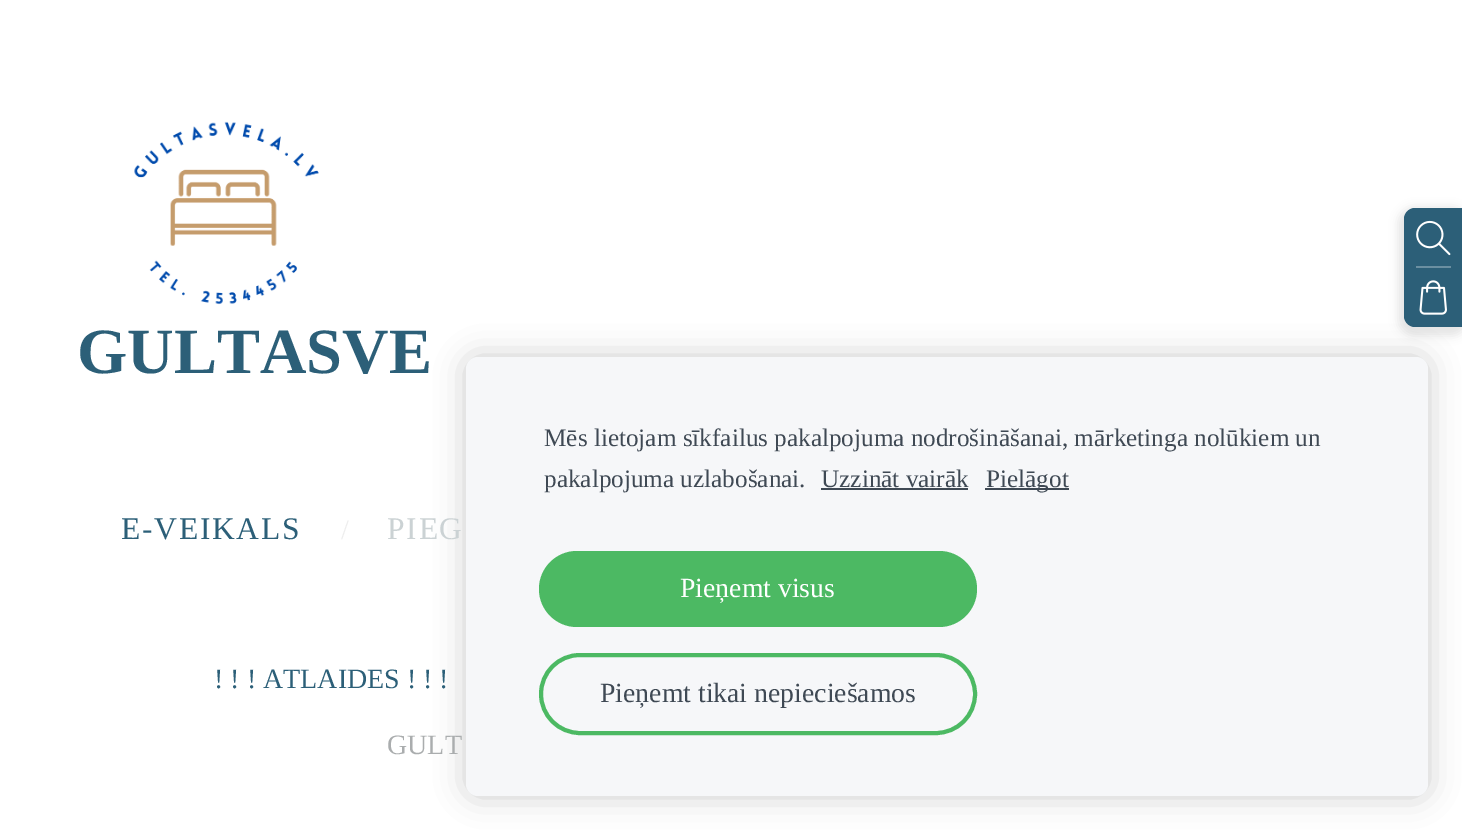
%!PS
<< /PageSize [1462 830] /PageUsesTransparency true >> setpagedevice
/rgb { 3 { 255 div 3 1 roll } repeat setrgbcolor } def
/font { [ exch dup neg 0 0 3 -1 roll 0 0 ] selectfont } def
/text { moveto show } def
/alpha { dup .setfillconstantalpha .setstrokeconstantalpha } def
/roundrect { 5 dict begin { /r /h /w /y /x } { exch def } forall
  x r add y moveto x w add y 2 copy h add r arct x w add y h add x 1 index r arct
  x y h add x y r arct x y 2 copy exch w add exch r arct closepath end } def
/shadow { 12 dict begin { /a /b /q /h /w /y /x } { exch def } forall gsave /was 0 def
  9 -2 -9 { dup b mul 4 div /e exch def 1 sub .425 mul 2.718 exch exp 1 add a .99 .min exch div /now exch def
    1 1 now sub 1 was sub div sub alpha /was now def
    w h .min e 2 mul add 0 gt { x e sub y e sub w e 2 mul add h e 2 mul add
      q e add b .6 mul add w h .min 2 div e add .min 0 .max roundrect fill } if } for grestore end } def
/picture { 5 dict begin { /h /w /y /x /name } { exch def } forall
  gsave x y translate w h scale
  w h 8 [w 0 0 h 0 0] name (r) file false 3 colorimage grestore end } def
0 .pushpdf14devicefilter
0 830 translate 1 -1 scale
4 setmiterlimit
255 255 255 rgb
0 0 1462 830 rectfill
0 0 0 rgb
1398 207 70 129 16 4.5 0.1 shadow
44 95 120 rgb
1415 208 moveto 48 0 rlineto 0 119 rlineto -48 0 rlineto -6 0 -11 -5 -11 -11 rcurveto 0 -97 rlineto 0 -6 5 -11 11 -11 rcurveto closepath fill
(img_01.rgb) 1416 220 35 36 picture
107 143 161 rgb
1416 266 35 2 rectfill
(img_02.rgb) 1419 280 28 35 picture
(img_03.rgb) 134 121 185 184 picture
0 0 0 rgb
466 357 962 439 12 15 0.2 shadow
246 247 249 rgb
466 357 962 439 12 roundrect fill
63 73 84 rgb
821 488 147 2 rectfill
985 488 84 2 rectfill
76 185 99 rgb
539 551 438 76 38 roundrect fill
4 setlinewidth
541 655 434 78 39 roundrect stroke
/LiberationSerif-Bold 64.5 font
44 95 120 rgb
(GULTASVE) 77 373 text
/LiberationSerif-Regular 31.5 font
121 539 moveto 1.75 0 (E-VEIKALS) ashow
/LiberationSerif-Regular 28 font
238 238 238 rgb
(/) 341 539 text
/LiberationSerif-Regular 31.5 font
203 210 212 rgb
387 539 moveto 1.75 0 (PIEG) ashow
/LiberationSerif-Regular 28 font
44 95 120 rgb
(! ! ! ATLAIDES ! ! !) 214 688 text
170 173 174 rgb
(GULT) 387 754 text
/LiberationSerif-Regular 25.2 font
63 73 84 rgb
(Mēs lietojam sīkfailus pakalpojuma nodrošināšanai, mārketinga nolūkiem un) 544 446 text
(pakalpojuma uzlabošanai.) 544 487 text
(Uzzināt vairāk) 821 487 text
(Pielāgot) 986 487 text
/LiberationSerif-Regular 27.75 font
255 255 255 rgb
(Pieņemt visus) 680 597 text
63 73 84 rgb
(Pieņemt tikai nepieciešamos) 600 702 text
.poppdf14devicefilter showpage
